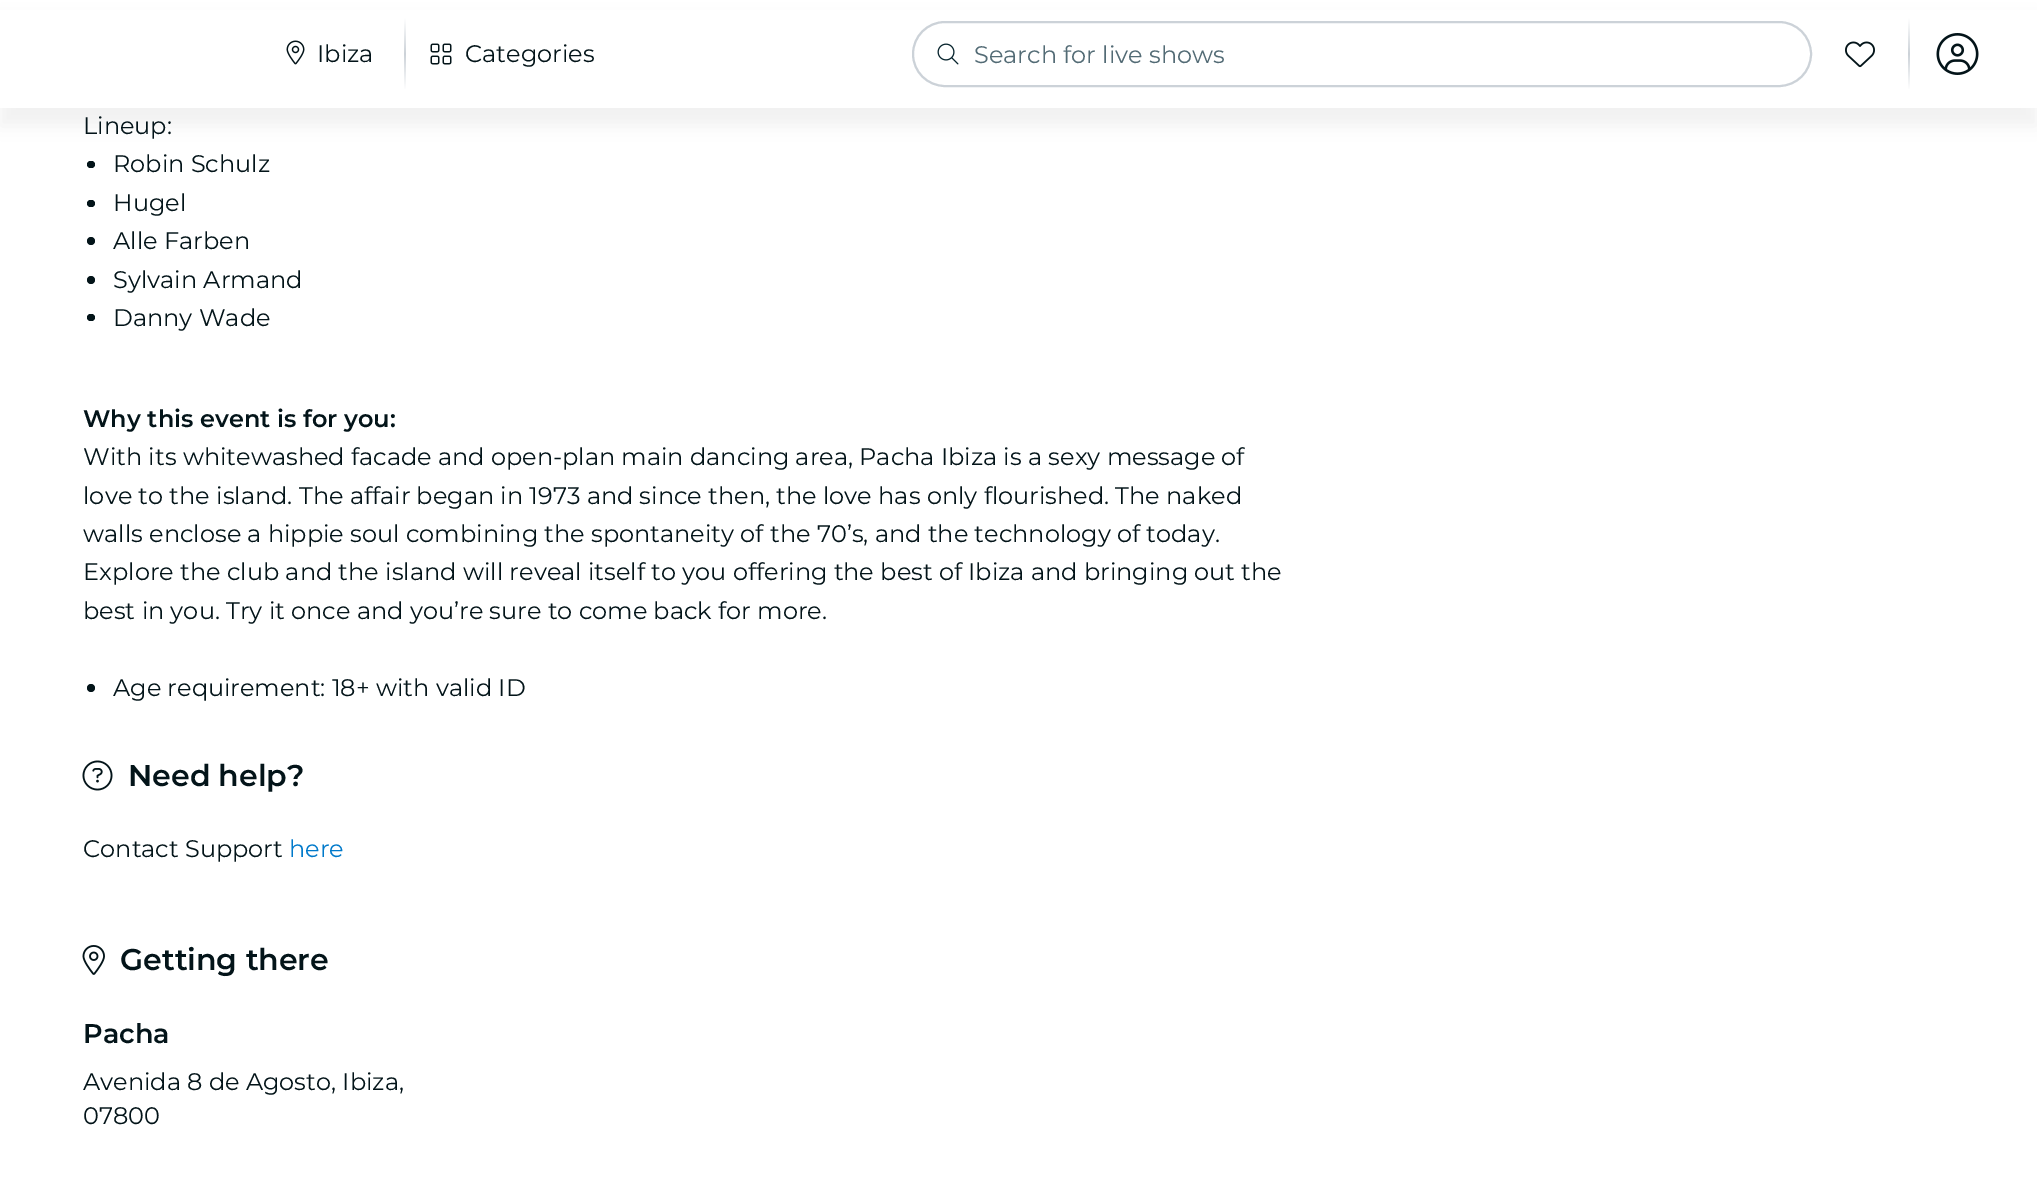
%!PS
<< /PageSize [2037 1179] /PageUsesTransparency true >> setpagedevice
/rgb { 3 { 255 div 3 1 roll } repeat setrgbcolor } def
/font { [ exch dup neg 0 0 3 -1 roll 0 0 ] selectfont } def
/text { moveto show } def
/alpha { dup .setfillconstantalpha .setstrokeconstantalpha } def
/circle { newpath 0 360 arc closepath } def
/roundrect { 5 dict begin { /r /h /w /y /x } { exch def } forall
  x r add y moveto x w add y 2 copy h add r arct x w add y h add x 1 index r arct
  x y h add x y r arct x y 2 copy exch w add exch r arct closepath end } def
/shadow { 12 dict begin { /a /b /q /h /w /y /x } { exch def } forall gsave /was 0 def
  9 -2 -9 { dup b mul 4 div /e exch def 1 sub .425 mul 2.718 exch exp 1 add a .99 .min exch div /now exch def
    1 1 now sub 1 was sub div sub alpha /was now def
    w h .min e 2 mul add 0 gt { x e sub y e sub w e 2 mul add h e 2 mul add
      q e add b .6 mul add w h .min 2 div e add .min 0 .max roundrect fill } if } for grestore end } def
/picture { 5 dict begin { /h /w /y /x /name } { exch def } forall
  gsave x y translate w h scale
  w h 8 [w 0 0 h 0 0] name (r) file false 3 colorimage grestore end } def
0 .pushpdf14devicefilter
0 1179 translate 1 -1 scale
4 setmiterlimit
255 255 255 rgb
0 0 2037 1179 rectfill
0 0 0 rgb
0 18 2037 108 0 9 0.05 shadow
255 255 255 rgb
0 10 2037 98 rectfill
(img_01.rgb) 286 40 19 25 picture
gsave 404 18 moveto 2 0 rlineto 0 72 rlineto -2 0 rlineto closepath clip newpath
<< /ShadingType 2 /ColorSpace /DeviceRGB /Coords [404 18 404 90] /Extend [true true] /Function << /FunctionType 3 /Domain [0 1] /Functions [<< /FunctionType 2 /Domain [0 1] /C0 [1 1 1] /C1 [0.8 0.824 0.847] /N 1 >> << /FunctionType 2 /Domain [0 1] /C0 [0.8 0.824 0.847] /C1 [1 1 1] /N 1 >>] /Bounds [0.5] /Encode [0 1 0 1] >> >> shfill grestore
(img_02.rgb) 430 43 22 22 picture
204 210 216 rgb
2 setlinewidth
913 22 898 64 32 roundrect stroke
(img_03.rgb) 937 43 22 22 picture
(img_04.rgb) 1845 41 30 27 picture
gsave 1908 18 moveto 2 0 rlineto 0 72 rlineto -2 0 rlineto closepath clip newpath
<< /ShadingType 2 /ColorSpace /DeviceRGB /Coords [1909 18 1909 90] /Extend [true true] /Function << /FunctionType 3 /Domain [0 1] /Functions [<< /FunctionType 2 /Domain [0 1] /C0 [1 1 1] /C1 [0.8 0.824 0.847] /N 1 >> << /FunctionType 2 /Domain [0 1] /C0 [0.8 0.824 0.847] /C1 [1 1 1] /N 1 >>] /Bounds [0.5] /Encode [0 1 0 1] >> >> shfill grestore
(img_05.rgb) 1936 33 43 42 picture
3 20 25 rgb
87 161 8 7 3.5 roundrect fill
87 200 8 7 3.5 roundrect fill
91 241 4 circle fill
91 280 4 circle fill
87 314 8 7 3.5 roundrect fill
91 688 4 circle fill
(img_06.rgb) 82 760 31 31 picture
(img_07.rgb) 82 945 23 30 picture
/Montserrat-Regular 24 font
(Ibiza) 317 62 text
(Categories) 465 62 text
83 107 117 rgb
(Search for live shows) 974 63 text
3 20 25 rgb
(Lineup:) 83 134 text
(Robin Schulz) 113 172 text
(Hugel) 113 211 text
(Alle Farben) 113 249 text
(Sylvain Armand) 113 288 text
(Danny Wade) 113 326 text
/Montserrat-SemiBold 24 font
(Why this event is for you:) 83 427 text
/Montserrat-Regular 24 font
(With its whitewashed facade and open-plan main dancing area, Pacha Ibiza is a sexy message of) 83 465 text
(love to the island. The affair began in 1973 and since then, the love has only flourished. The naked) 83 504 text
(walls enclose a hippie soul combining the spontaneity of the 70’s, and the technology of today.) 83 542 text
(Explore the club and the island will reveal itself to you offering the best of Ibiza and bringing out the) 83 580 text
(best in you. Try it once and you’re sure to come back for more.) 83 619 text
(Age requirement: 18+ with valid ID) 113 696 text
/Montserrat-SemiBold 30 font
(Need help?) 128 786 text
/Montserrat-Regular 24 font
(Contact Support) 83 857 text
0 121 202 rgb
(here) 289 857 text
/Montserrat-SemiBold 30 font
3 20 25 rgb
(Getting there) 120 970 text
/Montserrat-SemiBold 27 font
(Pacha) 83 1043 text
/Montserrat-Regular 24 font
(Avenida 8 de Agosto, Ibiza,) 83 1090 text
(07800) 83 1124 text
.poppdf14devicefilter showpage
